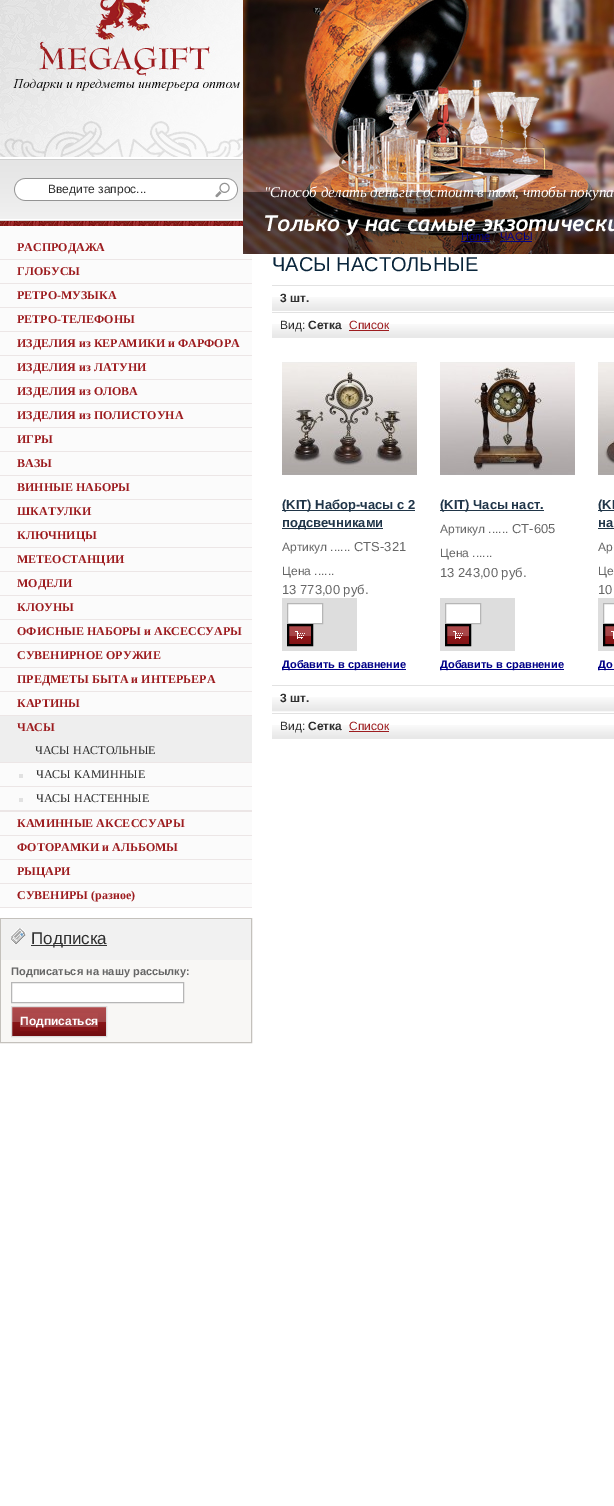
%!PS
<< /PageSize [614 1506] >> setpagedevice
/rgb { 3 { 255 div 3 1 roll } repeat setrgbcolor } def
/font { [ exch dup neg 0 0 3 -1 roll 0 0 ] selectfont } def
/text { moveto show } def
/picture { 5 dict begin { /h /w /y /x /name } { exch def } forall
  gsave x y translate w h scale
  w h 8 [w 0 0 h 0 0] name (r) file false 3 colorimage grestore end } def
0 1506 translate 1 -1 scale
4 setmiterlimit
255 255 255 rgb
0 0 614 1506 rectfill
(img_01.rgb) 0 221 243 5 picture
(img_02.rgb) 0 0 243 158 picture
(img_03.rgb) 0 158 243 63 picture
(img_04.rgb) 14 178 224 23 picture
(img_05.rgb) 213 182 18 16 picture
251 251 251 rgb
0 226 252 681 rectfill
(img_06.rgb) 243 0 371 255 picture
0 0 136 rgb
461 241 29 1 rectfill
500 241 32 1 rectfill
236 230 230 rgb
0 259 252 1 rectfill
0 283 252 1 rectfill
0 307 252 1 rectfill
0 331 252 1 rectfill
0 355 252 1 rectfill
0 379 252 1 rectfill
0 403 252 1 rectfill
0 427 252 1 rectfill
0 451 252 1 rectfill
0 475 252 1 rectfill
0 499 252 1 rectfill
0 523 252 1 rectfill
0 547 252 1 rectfill
0 571 252 1 rectfill
0 595 252 1 rectfill
0 619 252 1 rectfill
0 643 252 1 rectfill
0 667 252 1 rectfill
0 691 252 1 rectfill
0 715 252 1 rectfill
0 810 252 2 rectfill
238 238 238 rgb
0 716 252 46 rectfill
236 230 230 rgb
0 762 252 1 rectfill
0 786 252 1 rectfill
225 225 225 rgb
19 774 4 4 rectfill
19 798 4 4 rectfill
236 230 230 rgb
0 835 252 1 rectfill
0 859 252 1 rectfill
0 883 252 1 rectfill
0 907 252 1 rectfill
196 193 188 rgb
0.5 918.5 251 124 rectstroke
241 241 241 rgb
1 919 250 41 rectfill
(img_07.rgb) 11 928 15 16 picture
51 51 51 rgb
31 945 76 1 rectfill
248 247 245 rgb
1 960 250 82 rectfill
255 255 255 rgb
11.5 982.5 moveto 172 0 rlineto 0 20 rlineto -172 0 rlineto closepath gsave fill grestore
182 182 182 rgb
stroke
(img_08.rgb) 12 1007 94 29 picture
221 221 221 rgb
11.5 1006.5 95 30 rectstroke
(img_09.rgb) 20 1013 78 18 picture
(img_10.rgb) 272 297 342 14 picture
226 226 226 rgb
272 285 342 1 rectfill
(img_10.rgb) 272 324 342 14 picture
272 312 342 1 rectfill
157 28 31 rgb
349 330 40 1 rectfill
(img_11.rgb) 282 362 135 113 picture
32 53 72 rgb
282 510 133 1 rectfill
282 528 101 1 rectfill
221 221 221 rgb
282 598 75 53 rectfill
255 255 255 rgb
287.5 603.5 moveto 35 0 rlineto 0 20 rlineto -35 0 rlineto closepath gsave fill grestore
182 182 182 rgb
stroke
(img_12.rgb) 289 626 22 18 picture
0 0 0 rgb
2 setlinewidth
288 625 24 20 rectstroke
0 0 136 rgb
282 669 124 1 rectfill
(img_13.rgb) 440 362 135 113 picture
32 53 72 rgb
440 510 104 1 rectfill
221 221 221 rgb
440 598 75 53 rectfill
255 255 255 rgb
445.5 603.5 moveto 35 0 rlineto 0 20 rlineto -35 0 rlineto closepath gsave fill grestore
182 182 182 rgb
1 setlinewidth
stroke
(img_12.rgb) 447 626 22 18 picture
0 0 0 rgb
2 setlinewidth
446 625 24 20 rectstroke
0 0 136 rgb
440 669 124 1 rectfill
(img_14.rgb) 598 362 16 113 picture
32 53 72 rgb
598 510 16 1 rectfill
598 528 16 1 rectfill
221 221 221 rgb
598 598 16 53 rectfill
255 255 255 rgb
603.5 603.5 moveto 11 0 rlineto 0 20 rlineto -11 0 rlineto closepath gsave fill grestore
182 182 182 rgb
1 setlinewidth
stroke
(img_15.rgb) 605 626 9 18 picture
0 0 0 rgb
2 setlinewidth
604 625 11 20 rectstroke
0 0 136 rgb
598 669 16 1 rectfill
(img_16.rgb) 272 697 342 15 picture
226 226 226 rgb
272 685 342 1 rectfill
(img_10.rgb) 272 725 342 14 picture
272 713 342 1 rectfill
157 28 31 rgb
349 731 40 1 rectfill
/LiberationSans-Regular 12 font
47 47 47 rgb
(Введите запрос...) 48 193 text
/LiberationSerif-Italic 15 font
255 255 255 rgb
("Способ делать деньги состоит в том, чтобы покупа) 264 197 text
/LiberationSans-Regular 11 font
0 0 136 rgb
(Home) 461 240 text
47 47 47 rgb
(/) 493 240 text
0 0 136 rgb
(ЧАСЫ) 500 240 text
47 47 47 rgb
(/) 535 240 text
/LiberationSerif-Bold 12 font
157 28 31 rgb
(РАСПРОДАЖА) 17 251 text
(ГЛОБУСЫ) 17 275 text
(РЕТРО-МУЗЫКА) 17 299 text
(РЕТРО-ТЕЛЕФОНЫ) 17 323 text
(ИЗДЕЛИЯ из КЕРАМИКИ и ФАРФОРА) 17 347 text
(ИЗДЕЛИЯ из ЛАТУНИ) 17 371 text
(ИЗДЕЛИЯ из ОЛОВА) 17 395 text
(ИЗДЕЛИЯ из ПОЛИСТОУНА) 17 419 text
(ИГРЫ) 17 443 text
(ВАЗЫ) 17 467 text
(ВИННЫЕ НАБОРЫ) 17 491 text
(ШКАТУЛКИ) 17 515 text
(КЛЮЧНИЦЫ) 17 539 text
(МЕТЕОСТАНЦИИ) 17 563 text
(МОДЕЛИ) 17 587 text
(КЛОУНЫ) 17 611 text
(ОФИСНЫЕ НАБОРЫ и АКСЕССУАРЫ) 17 635 text
(СУВЕНИРНОЕ ОРУЖИЕ) 17 659 text
(ПРЕДМЕТЫ БЫТА и ИНТЕРЬЕРА) 17 683 text
(КАРТИНЫ) 17 707 text
(ЧАСЫ) 17 731 text
/LiberationSerif-Regular 12 font
47 47 47 rgb
(ЧАСЫ НАСТОЛЬНЫЕ) 35 754 text
(ЧАСЫ КАМИННЫЕ) 36 778 text
(ЧАСЫ НАСТЕННЫЕ) 36 802 text
/LiberationSerif-Bold 12 font
157 28 31 rgb
(КАМИННЫЕ АКСЕССУАРЫ) 17 827 text
(ФОТОРАМКИ и АЛЬБОМЫ) 17 851 text
(РЫЦАРИ) 17 875 text
(СУВЕНИРЫ \(разное\)) 17 899 text
/LiberationSans-Regular 17 font
47 47 47 rgb
(Подписка) 31 944 text
/LiberationSans-Bold 11 font
102 102 102 rgb
(Подписаться на нашу рассылку:) 11 975 text
/LiberationSans-Bold 12 font
255 255 255 rgb
(Подписаться) 20 1025 text
/LiberationSans-Regular 20 font
10 38 60 rgb
(ЧАСЫ НАСТОЛЬНЫЕ) 272 271 text
/LiberationSans-Bold 12 font
47 47 47 rgb
(3 шт.) 280 302 text
/LiberationSans-Regular 12 font
(Вид:) 280 329 text
/LiberationSans-Bold 12 font
(Сетка) 308 329 text
/LiberationSans-Regular 12 font
157 28 31 rgb
(Список) 349 329 text
/LiberationSans-Bold 13 font
32 53 72 rgb
(\(KIT\) Набор-часы с 2) 282 509 text
(подсвечниками) 282 527 text
/LiberationSans-Regular 12 font
102 102 102 rgb
(Артикул ......) 282 551 text
/LiberationSans-Regular 13 font
(CTS-321) 354 551 text
/LiberationSans-Regular 12 font
(Цена ......) 282 575 text
/LiberationSans-Regular 13 font
(13 773,00 руб.) 282 594 text
/LiberationSans-Bold 11 font
0 0 136 rgb
(Добавить в сравнение) 282 668 text
/LiberationSans-Bold 13 font
32 53 72 rgb
(\(KIT\) Часы наст.) 440 509 text
/LiberationSans-Regular 12 font
102 102 102 rgb
(Артикул ......) 440 533 text
/LiberationSans-Regular 13 font
(CT-605) 512 533 text
/LiberationSans-Regular 12 font
(Цена ......) 440 557 text
/LiberationSans-Regular 13 font
(13 243,00 руб.) 440 577 text
/LiberationSans-Bold 11 font
0 0 136 rgb
(Добавить в сравнение) 440 668 text
/LiberationSans-Bold 13 font
32 53 72 rgb
(\(KI) 598 509 text
(на) 598 527 text
/LiberationSans-Regular 12 font
102 102 102 rgb
(Ар) 598 551 text
(Це) 598 575 text
/LiberationSans-Regular 13 font
(10) 598 594 text
/LiberationSans-Bold 11 font
0 0 136 rgb
(До) 598 668 text
/LiberationSans-Bold 12 font
47 47 47 rgb
(3 шт.) 280 702 text
/LiberationSans-Regular 12 font
(Вид:) 280 730 text
/LiberationSans-Bold 12 font
(Сетка) 308 730 text
/LiberationSans-Regular 12 font
157 28 31 rgb
(Список) 349 730 text
showpage
